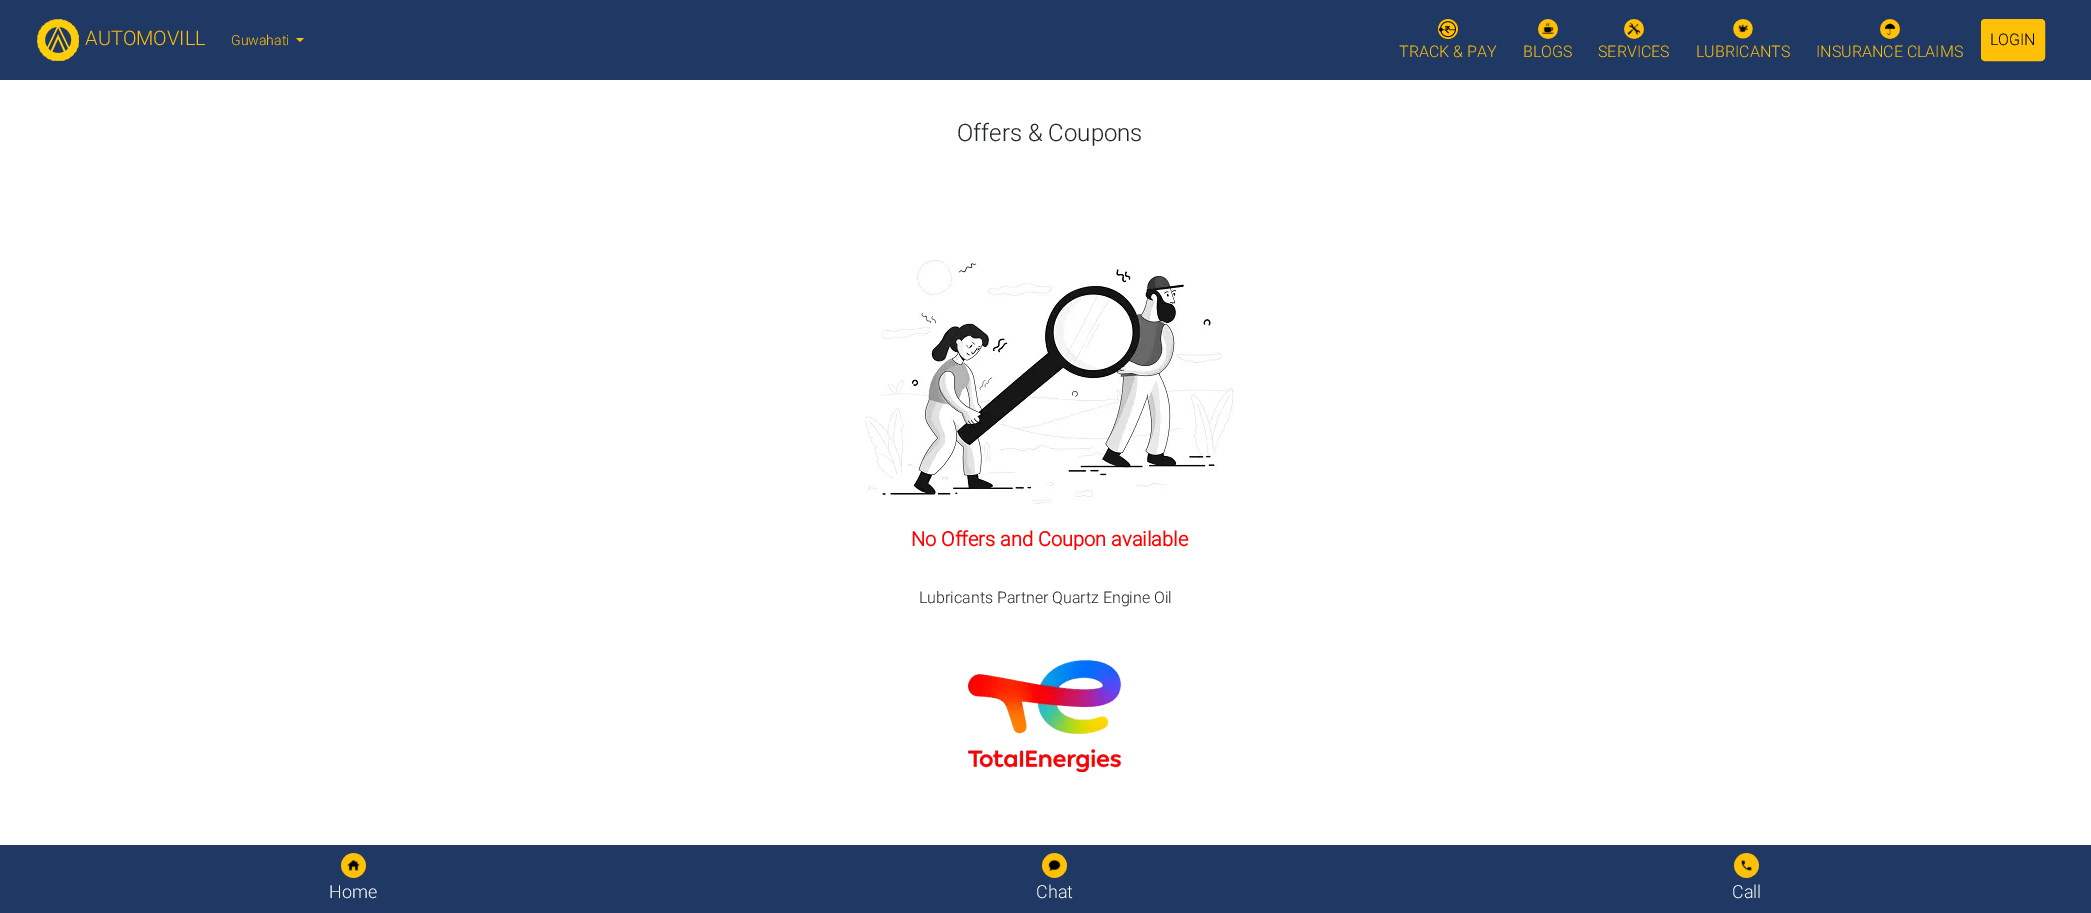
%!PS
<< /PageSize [2091 913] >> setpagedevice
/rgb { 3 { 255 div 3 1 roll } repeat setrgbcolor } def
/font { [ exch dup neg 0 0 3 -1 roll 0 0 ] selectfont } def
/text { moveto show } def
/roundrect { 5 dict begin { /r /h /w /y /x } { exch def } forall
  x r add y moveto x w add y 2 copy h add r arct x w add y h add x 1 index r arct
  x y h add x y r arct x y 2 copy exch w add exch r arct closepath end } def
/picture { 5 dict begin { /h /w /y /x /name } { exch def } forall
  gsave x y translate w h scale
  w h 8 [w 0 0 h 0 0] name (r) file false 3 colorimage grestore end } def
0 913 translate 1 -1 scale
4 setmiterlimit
255 255 255 rgb
0 0 2091 913 rectfill
32 56 100 rgb
0 0 2091 80 rectfill
(img_01.rgb) 37 19 42 42 picture
255 193 7 rgb
296 38 moveto 8 0 rlineto -4 4 rlineto closepath fill
1981.5 19.5 63 41 3.5 roundrect gsave fill grestore
stroke
(img_02.rgb) 1438 19 20 20 picture
(img_03.rgb) 1538 19 20 20 picture
(img_04.rgb) 1624 19 20 20 picture
(img_05.rgb) 1733 19 20 20 picture
(img_06.rgb) 1880 19 20 20 picture
(img_07.rgb) 865 260 369 244 picture
(img_08.rgb) 968 659 154 114 picture
32 56 100 rgb
0 845 2091 68 rectfill
(img_09.rgb) 341 853 25 25 picture
(img_10.rgb) 1042 853 25 25 picture
(img_11.rgb) 1734 853 25 25 picture
/Roboto-Light 20 font
255 193 7 rgb
(AUTOMOVILL) 85 45 text
/Roboto-Light 14 font
(Guwahati) 231 45 text
/Roboto-Light 16 font
0 0 0 rgb
(LOGIN) 1990 45 text
255 193 7 rgb
(TRACK & PAY) 1399 57 text
(BLOGS) 1523 57 text
(SERVICES) 1598 57 text
(LUBRICANTS) 1696 57 text
(INSURANCE CLAIMS) 1816 57 text
/Roboto-Light 24 font
33 37 41 rgb
(Offers & Coupons) 957 141 text
/Roboto-Bold 20 font
255 0 0 rgb
(No Offers and Coupon available) 911 546 text
/Roboto-Light 16 font
33 37 41 rgb
(Lubricants Partner Quartz Engine Oil) 919 603 text
/Roboto-Light 18 font
255 255 255 rgb
(Home) 329 898 text
(Chat) 1036 898 text
(Call) 1732 898 text
showpage
